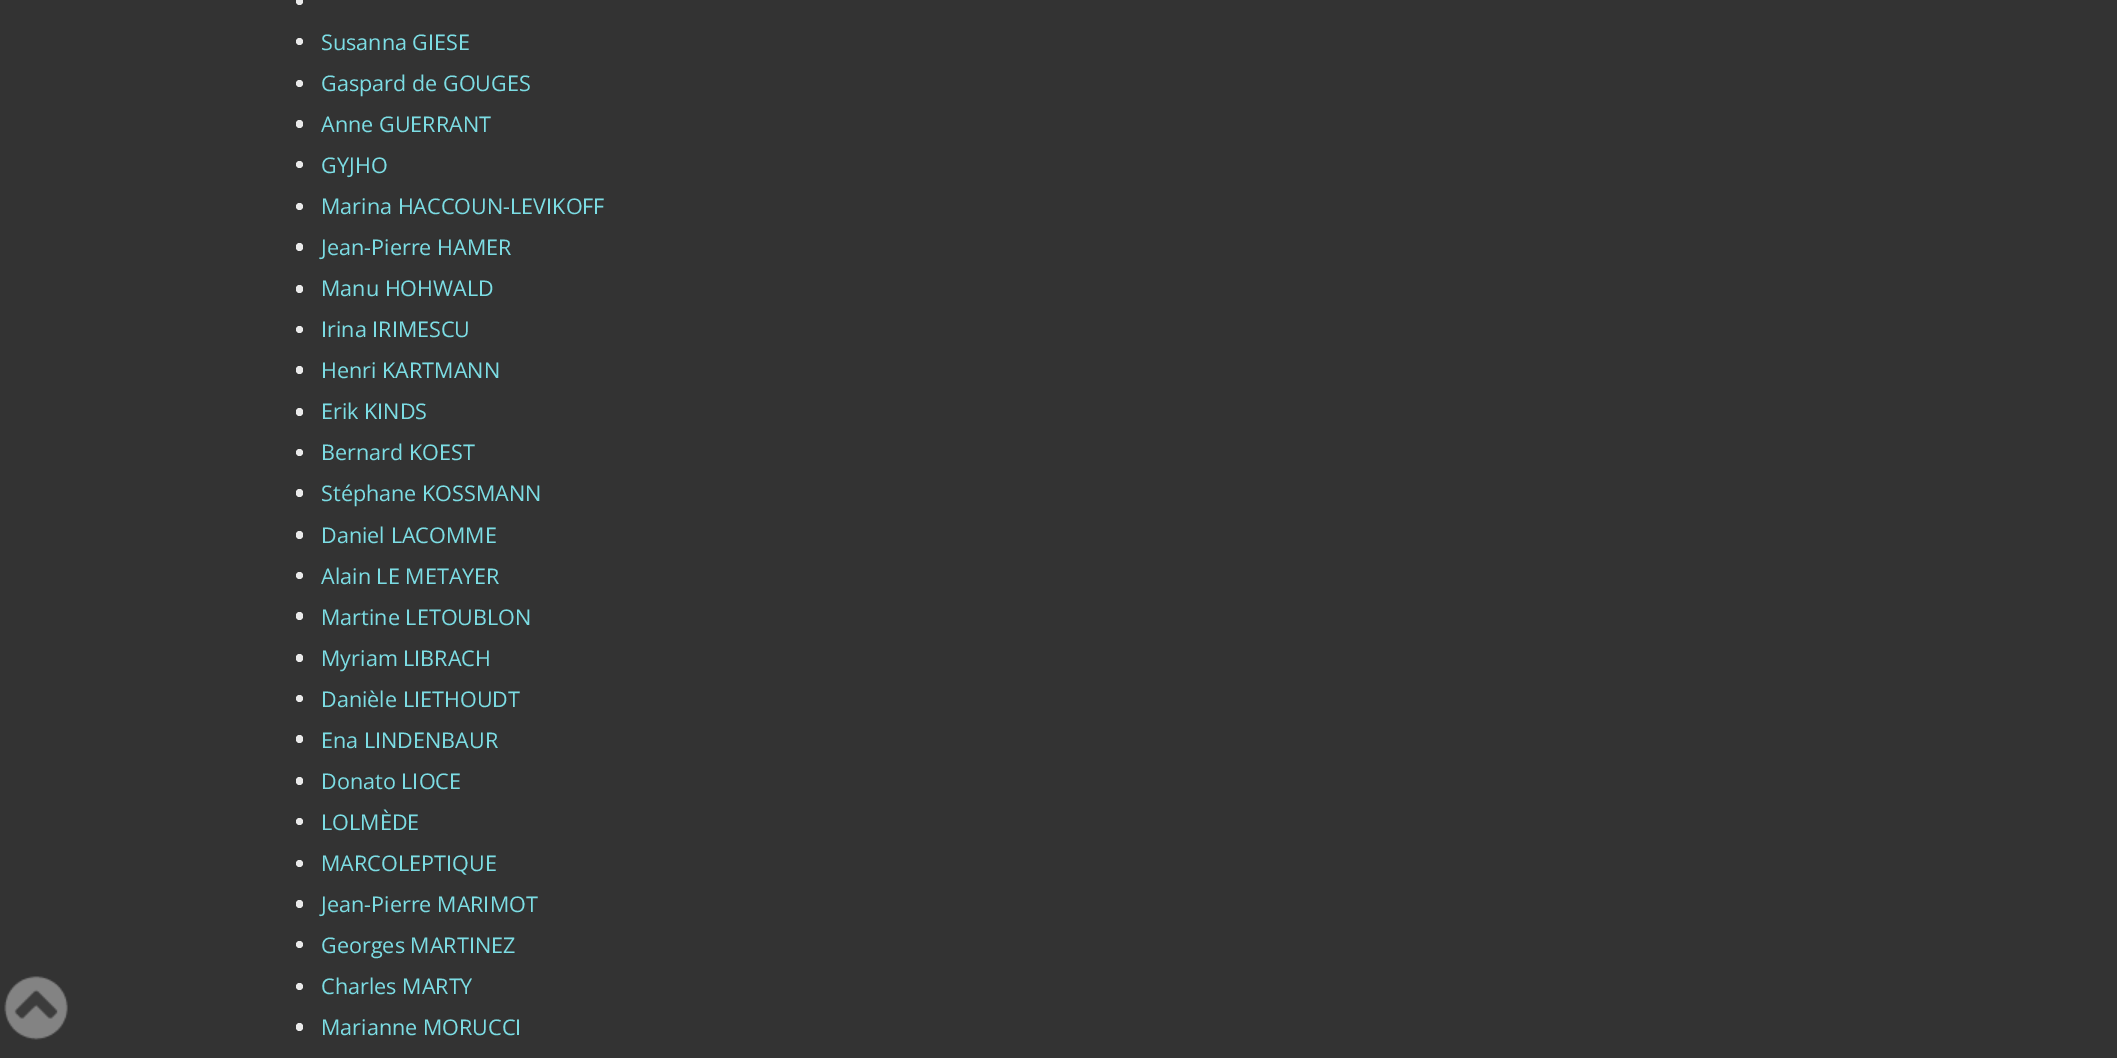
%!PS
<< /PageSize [2117 1058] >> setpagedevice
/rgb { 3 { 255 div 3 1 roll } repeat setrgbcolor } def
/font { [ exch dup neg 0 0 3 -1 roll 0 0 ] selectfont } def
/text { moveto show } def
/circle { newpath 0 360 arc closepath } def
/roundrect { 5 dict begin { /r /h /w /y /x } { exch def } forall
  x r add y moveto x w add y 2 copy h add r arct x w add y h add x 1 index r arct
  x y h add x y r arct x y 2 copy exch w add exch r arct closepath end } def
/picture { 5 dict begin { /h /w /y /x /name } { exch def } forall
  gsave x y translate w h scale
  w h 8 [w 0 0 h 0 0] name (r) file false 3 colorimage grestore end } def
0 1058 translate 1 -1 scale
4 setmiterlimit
51 51 51 rgb
0 0 2117 1058 rectfill
(img_01.rgb) 4 976 64 64 picture
234 234 234 rgb
296 -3 7 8 3.5 roundrect fill
299.5 41.5 3.5 circle fill
299.5 83.5 3.5 circle fill
296 120 7 8 3.5 roundrect fill
299.5 164.5 3.5 circle fill
299.5 206.5 3.5 circle fill
296 243 7 8 3.5 roundrect fill
296 285 7 8 3.5 roundrect fill
299.5 329.5 3.5 circle fill
296 366 7 8 3.5 roundrect fill
296 408 7 8 3.5 roundrect fill
299.5 452.5 3.5 circle fill
296 489 7 8 3.5 roundrect fill
296 531 7 8 3.5 roundrect fill
299.5 575.5 3.5 circle fill
296 612 7 8 3.5 roundrect fill
296 654 7 8 3.5 roundrect fill
299.5 698.5 3.5 circle fill
296 735 7 8 3.5 roundrect fill
296 777 7 8 3.5 roundrect fill
299.5 821.5 3.5 circle fill
299.5 863.5 3.5 circle fill
296 900 7 8 3.5 roundrect fill
299.5 944.5 3.5 circle fill
299.5 986.5 3.5 circle fill
296 1023 7 8 3.5 roundrect fill
/OpenSans-Regular 21.6 font
124 221 228 rgb
(Susanna GIESE) 321 50 text
(Gaspard de GOUGES) 321 91 text
(Anne GUERRANT) 321 132 text
(GYJHO) 321 173 text
(Marina HACCOUN-LEVIKOFF) 321 214 text
(Jean-Pierre HAMER) 321 255 text
(Manu HOHWALD) 321 296 text
(Irina IRIMESCU) 321 337 text
(Henri KARTMANN) 321 378 text
(Erik KINDS) 321 419 text
(Bernard KOEST) 321 460 text
(Stéphane KOSSMANN) 321 501 text
(Daniel LACOMME) 321 543 text
(Alain LE METAYER) 321 584 text
(Martine LETOUBLON) 321 625 text
(Myriam LIBRACH) 321 666 text
(Danièle LIETHOUDT) 321 707 text
(Ena LINDENBAUR) 321 748 text
(Donato LIOCE) 321 789 text
(LOLMÈDE) 321 830 text
(MARCOLEPTIQUE) 321 871 text
(Jean-Pierre MARIMOT) 321 912 text
(Georges MARTINEZ) 321 953 text
(Charles MARTY) 321 994 text
(Marianne MORUCCI) 321 1035 text
showpage
